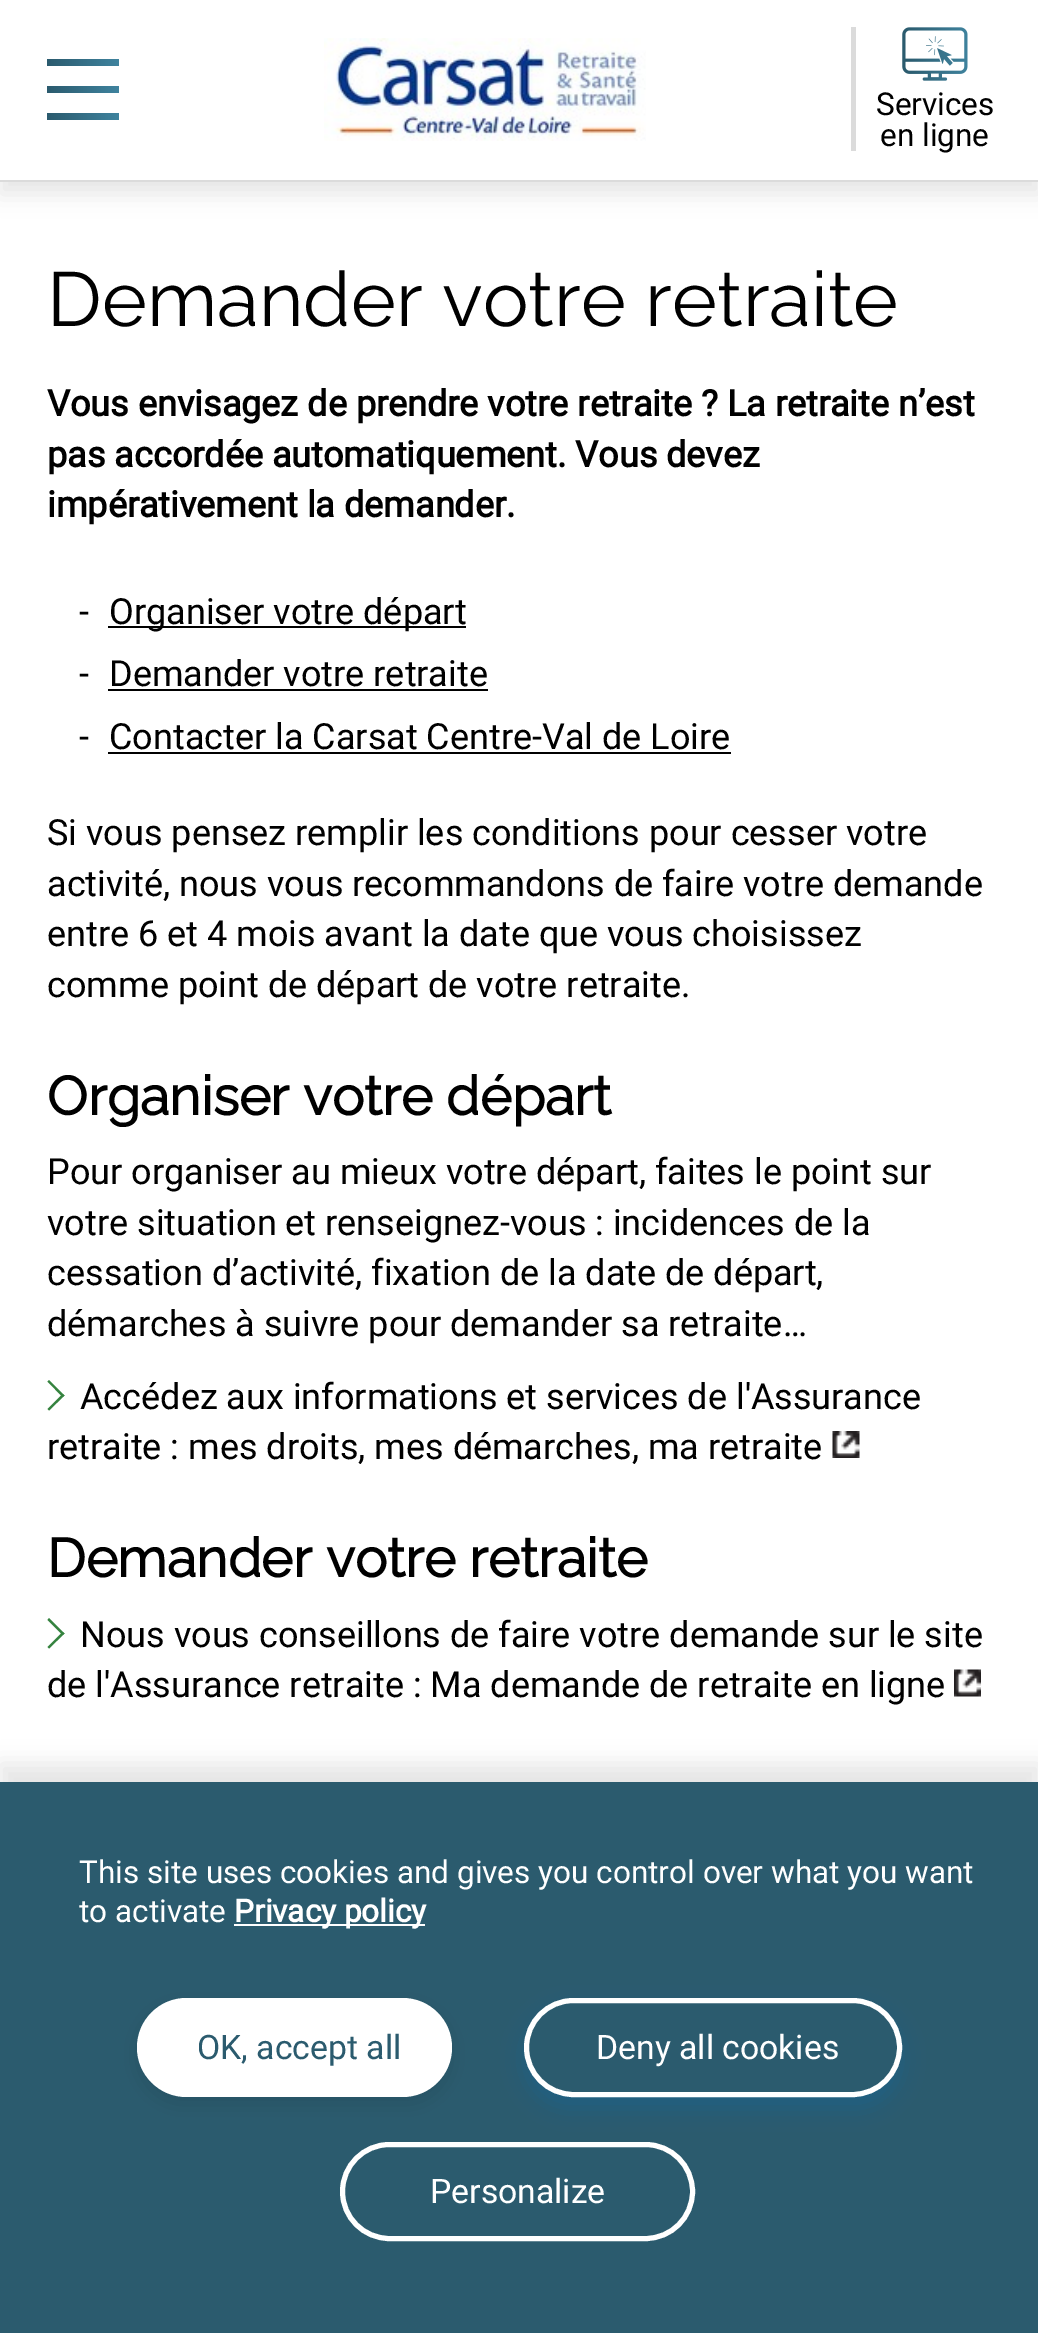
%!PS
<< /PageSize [1038 2333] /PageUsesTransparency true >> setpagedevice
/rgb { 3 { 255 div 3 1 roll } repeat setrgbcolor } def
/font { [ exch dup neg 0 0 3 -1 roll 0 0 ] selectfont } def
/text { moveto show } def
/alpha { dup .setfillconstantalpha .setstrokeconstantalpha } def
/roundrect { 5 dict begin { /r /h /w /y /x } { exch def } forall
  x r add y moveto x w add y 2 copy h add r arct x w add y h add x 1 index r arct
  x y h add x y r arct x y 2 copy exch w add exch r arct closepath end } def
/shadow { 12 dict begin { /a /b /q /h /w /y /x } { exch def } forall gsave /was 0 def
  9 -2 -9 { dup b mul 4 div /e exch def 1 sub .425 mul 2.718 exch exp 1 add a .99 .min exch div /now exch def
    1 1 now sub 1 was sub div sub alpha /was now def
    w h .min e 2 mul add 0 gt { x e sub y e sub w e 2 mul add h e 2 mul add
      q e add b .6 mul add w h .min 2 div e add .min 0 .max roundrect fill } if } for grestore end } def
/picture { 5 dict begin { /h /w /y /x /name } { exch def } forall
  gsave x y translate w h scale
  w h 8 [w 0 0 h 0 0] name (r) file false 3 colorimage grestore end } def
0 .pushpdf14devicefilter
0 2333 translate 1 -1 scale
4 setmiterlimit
255 255 255 rgb
0 0 1038 2333 rectfill
0 0 0 rgb
0 11 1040 183 0 11 0.1 shadow
255 255 255 rgb
0 0 1038 180 rectfill
219 219 219 rgb
0 180 1038 2 rectfill
gsave 47 59 72 7 2 roundrect clip newpath
<< /ShadingType 2 /ColorSpace /DeviceRGB /Coords [47 62 119 62] /Extend [true true] /Function << /FunctionType 2 /Domain [0 1] /C0 [0.169 0.357 0.431] /C1 [0.247 0.514 0.62] /N 1 >> >> shfill grestore
gsave 47 86 72 7 2 roundrect clip newpath
<< /ShadingType 2 /ColorSpace /DeviceRGB /Coords [47 89 119 89] /Extend [true true] /Function << /FunctionType 2 /Domain [0 1] /C0 [0.169 0.357 0.431] /C1 [0.247 0.514 0.62] /N 1 >> >> shfill grestore
gsave 47 113 72 7 2 roundrect clip newpath
<< /ShadingType 2 /ColorSpace /DeviceRGB /Coords [47 116 119 116] /Extend [true true] /Function << /FunctionType 2 /Domain [0 1] /C0 [0.169 0.357 0.431] /C1 [0.247 0.514 0.62] /N 1 >> >> shfill grestore
(img_01.rgb) 324 38 322 103 picture
851 27 5 124 rectfill
(img_02.rgb) 902 27 66 54 picture
0 0 0 rgb
108 626 358 2 rectfill
108 689 380 2 rectfill
108 752 623 2 rectfill
53 131 63 rgb
49 1380 moveto 15.5 15.5 rlineto -2 1.5 rlineto -15 -15.5 rlineto closepath fill
62.5 1394 moveto 2 1.5 rlineto -15.5 15 rlineto -1.5 -1.5 rlineto closepath fill
(img_03.rgb) 832 1431 28 27 picture
49 1618 moveto 15.5 15.5 rlineto -2 1.5 rlineto -15 -15 rlineto closepath fill
62.5 1632 moveto 2 1.5 rlineto -15.5 15 rlineto -1.5 -1.5 rlineto closepath fill
(img_04.rgb) 954 1669 27 28 picture
0 0 0 rgb
0 1764 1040 551 0 11 0.1 shadow
43 91 110 rgb
0 1782 1038 551 rectfill
255 255 255 rgb
234 1924 191 2 rectfill
0 0 0 rgb
137 2005 315 99 49.5 11 0.1 shadow
255 255 255 rgb
137 1998 315 99 49.5 roundrect fill
0 113 185 rgb
524 2009 378 99 49.5 11 0.25 shadow
43 91 110 rgb
526.5 2000.5 373 94 47 roundrect gsave fill grestore
255 255 255 rgb
5 setlinewidth
stroke
342.5 2144.5 350 94 47 roundrect stroke
/Roboto-Regular 31.5 font
0 0 0 rgb
(Services) 876 115 text
(en ligne) 880 146 text
/Raleway-Regular 76.5 font
(Demander votre retraite) 47 326 text
/Roboto-Bold 36 font
(Vous envisagez de prendre votre retraite ? La retraite n’est) 47 416 text
(pas accordée automatiquement. Vous devez) 47 467 text
(impérativement la demander.) 47 517 text
/Roboto-Regular 36 font
(-) 79 624 text
(Organiser votre départ) 109 624 text
(-) 79 686 text
(Demander votre retraite) 109 686 text
(-) 79 749 text
(Contacter la Carsat Centre-Val de Loire) 109 749 text
(Si vous pensez remplir les conditions pour cesser votre) 47 845 text
(activité, nous vous recommandons de faire votre demande) 47 896 text
(entre 6 et 4 mois avant la date que vous choisissez) 47 946 text
(comme point de départ de votre retraite.) 47 997 text
/Raleway-Bold 54 font
(Organiser votre départ) 47 1115 text
/Roboto-Regular 36 font
(Pour organiser au mieux votre départ, faites le point sur) 47 1184 text
(votre situation et renseignez-vous : incidences de la) 47 1235 text
(cessation d’activité, fixation de la date de départ,) 47 1285 text
(démarches à suivre pour demander sa retraite…) 47 1336 text
(Accédez aux informations et services de l'Assurance) 80 1409 text
(retraite : mes droits, mes démarches, ma retraite) 47 1459 text
/Raleway-Bold 54 font
(Demander votre retraite) 47 1577 text
/Roboto-Regular 36 font
(Nous vous conseillons de faire votre demande sur le site) 80 1647 text
(de l'Assurance retraite : Ma demande de retraite en ligne) 47 1697 text
/Roboto-Regular 31.5 font
255 255 255 rgb
(This site uses cookies and gives you control over what you want) 79 1883 text
(to activate) 79 1922 text
/Roboto-Bold 31.5 font
(Privacy policy) 234 1922 text
/Roboto-Regular 33.75 font
43 91 110 rgb
(OK, accept all) 197 2059 text
255 255 255 rgb
(Deny all cookies) 596 2059 text
(Personalize) 430 2203 text
.poppdf14devicefilter showpage
